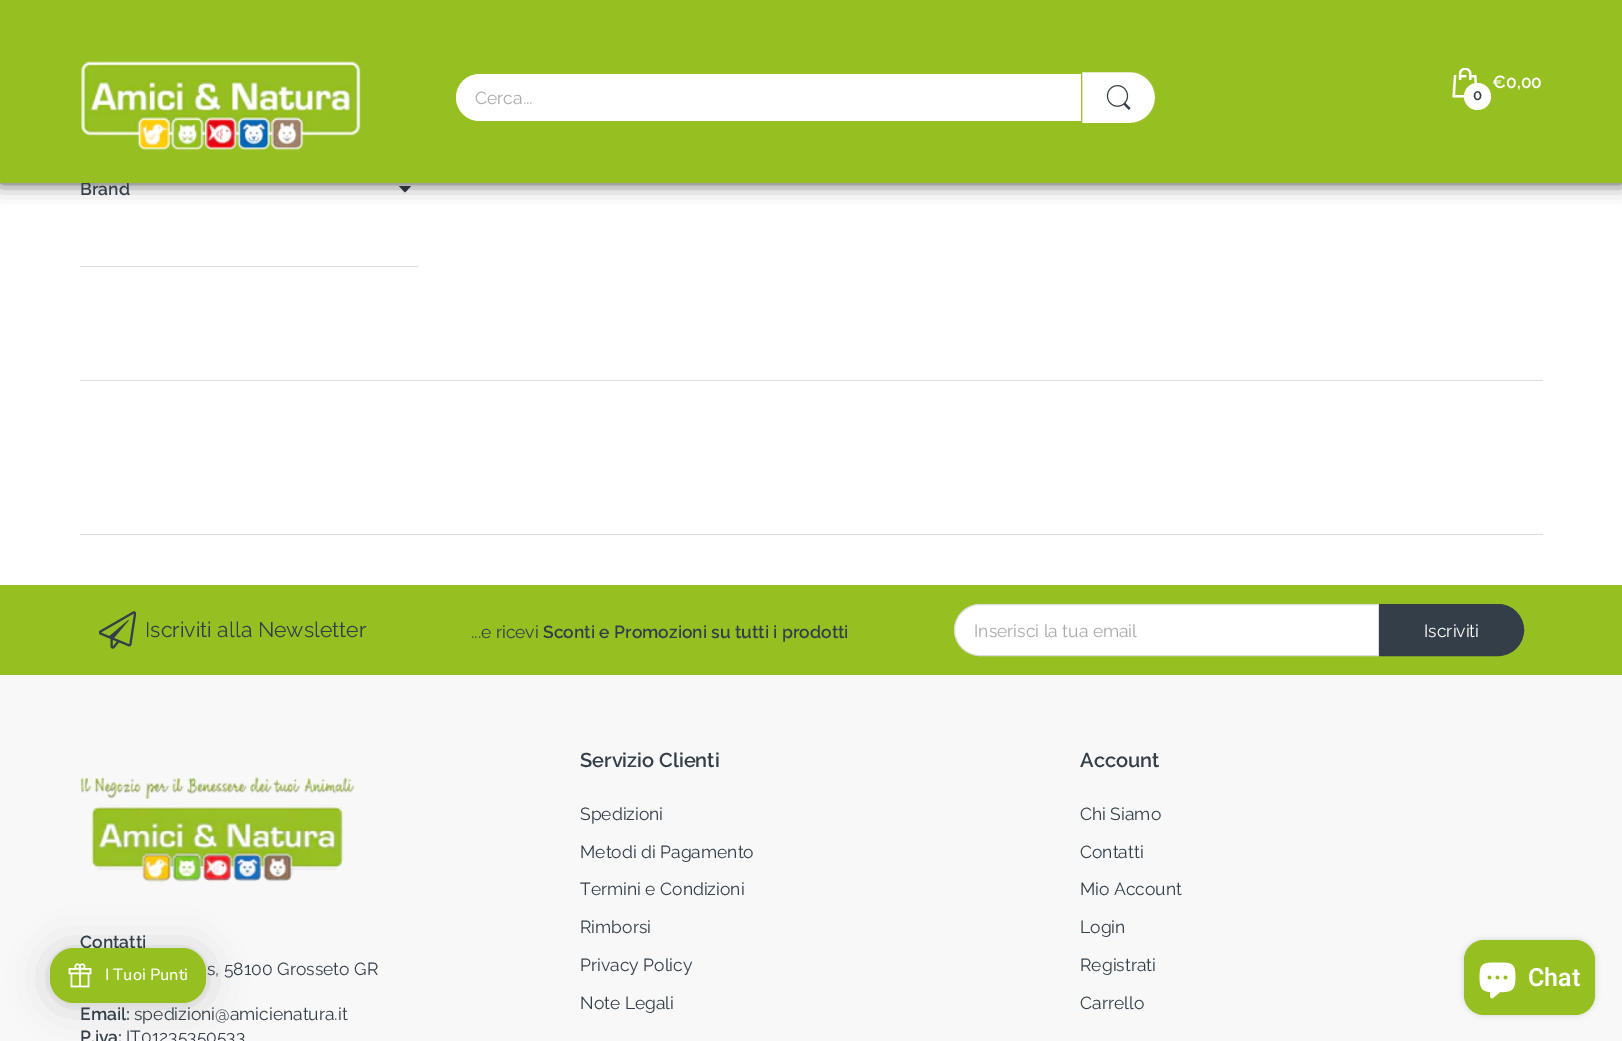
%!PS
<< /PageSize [1622 1041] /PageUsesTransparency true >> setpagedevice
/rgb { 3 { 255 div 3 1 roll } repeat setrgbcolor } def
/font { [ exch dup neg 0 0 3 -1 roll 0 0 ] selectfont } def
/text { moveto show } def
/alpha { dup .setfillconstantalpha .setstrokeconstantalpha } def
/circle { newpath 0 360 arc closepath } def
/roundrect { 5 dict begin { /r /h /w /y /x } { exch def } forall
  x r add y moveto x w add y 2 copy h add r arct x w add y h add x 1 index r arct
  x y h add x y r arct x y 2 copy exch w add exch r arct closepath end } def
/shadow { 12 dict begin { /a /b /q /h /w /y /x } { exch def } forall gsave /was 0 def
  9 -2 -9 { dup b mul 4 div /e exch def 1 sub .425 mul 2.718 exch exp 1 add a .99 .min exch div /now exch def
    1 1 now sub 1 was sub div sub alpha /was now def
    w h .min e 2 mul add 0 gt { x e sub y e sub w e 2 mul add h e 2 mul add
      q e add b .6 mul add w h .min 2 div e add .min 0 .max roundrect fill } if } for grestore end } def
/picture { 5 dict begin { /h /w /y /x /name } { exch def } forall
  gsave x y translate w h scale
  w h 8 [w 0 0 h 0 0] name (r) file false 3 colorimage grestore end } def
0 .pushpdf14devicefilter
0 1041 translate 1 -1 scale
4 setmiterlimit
255 255 255 rgb
0 0 1622 1041 rectfill
51 62 72 rgb
399 186 moveto 6 6.5 rlineto 6 -6.5 rlineto closepath eofill
32 33 36 rgb
0 0 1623 183 0 4 0.15 shadow
0 0 0 rgb
0 0 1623 183 0 9.5 0.65 shadow
221 221 221 rgb
80 266 338 1 rectfill
80 380 1463 1 rectfill
80 534 1463 1 rectfill
150 191 34 rgb
0 585 1622 90 rectfill
(img_04.rgb) 99 611 37 38 picture
255 255 255 rgb
980 604.5 moveto 398.5 0 rlineto 0 51 rlineto -398.5 0 rlineto -14 0 -25.5 -11.5 -25.5 -25.5 rcurveto 0 -14 11.5 -25.5 25.5 -25.5 rcurveto closepath gsave fill grestore
221 221 221 rgb
stroke
51 62 72 rgb
1379.5 604.5 moveto 118.5 0 rlineto 14 0 25.5 11.5 25.5 25.5 rcurveto 0 14 -11.5 25.5 -25.5 25.5 rcurveto -118.5 0 rlineto closepath gsave fill grestore
stroke
248 248 248 rgb
0 675 1622 366 rectfill
(img_05.rgb) 80 777 275 106 picture
0 0 0 rgb
1464 940 131 75 20 3 0.15 shadow
150 191 34 rgb
1464 940 131 75 20 roundrect fill
(img_06.rgb) 1479 962 37 37 picture
0 0 0 rgb
50 950 156 55 24 20 0.16 shadow
50 949 156 55 24 4 0.06 shadow
/Raleway-SemiBold 17.5 font
51 62 72 rgb
(Brand) 80 195 text
150 191 34 rgb
0 0 1622 183 rectfill
(img_03.rgb) 1452 68 25 30 picture
255 255 255 rgb
1477.5 96.5 13.5 circle fill
/Raleway-SemiBold 15 font
51 62 72 rgb
(0) 1473 100 text
/Raleway-SemiBold 17.5 font
255 255 255 rgb
(€0,00) 1492 88 text
456 74 697 47 23.5 roundrect fill
1081.5 71.5 moveto 48 0 rlineto 14.5 0 26 11.5 26 26 rcurveto 0 14.5 -11.5 26 -26 26 rcurveto -48 0 rlineto closepath gsave fill grestore
150 191 34 rgb
stroke
(img_02.rgb) 1106 85 25 25 picture
/Raleway-Regular 17.5 font
169 169 169 rgb
(Cerca...) 475 104 text
(img_01.rgb) 80 61 281 90 picture
/Raleway-Regular 21.25 font
51 62 72 rgb
(Iscriviti alla Newsletter) 145 637 text
/Raleway-Regular 17.5 font
(...e ricevi) 471 638 text
/Raleway-SemiBold 17.5 font
(Sconti e Promozioni su tutti i prodotti) 543 638 text
/Raleway-Regular 17.5 font
169 169 169 rgb
(Inserisci la tua email) 974 637 text
255 255 255 rgb
(Iscriviti) 1424 637 text
/Raleway-SemiBold 17.5 font
51 62 72 rgb
(Contatti) 80 948 text
/Raleway-Regular 17.5 font
(s, 58100 Grosseto GR) 207 975 text
/Raleway-SemiBold 17.5 font
(Email:) 80 1020 text
/Raleway-Regular 17.5 font
(spedizioni@amicienatura.it) 134 1020 text
/Raleway-SemiBold 17.5 font
(P.iva:) 80 1043 text
/Raleway-Regular 17.5 font
(IT01235350533) 126 1043 text
/Raleway-SemiBold 20 font
(Servizio Clienti) 580 767 text
/Raleway-Regular 17.5 font
(Spedizioni) 580 820 text
(Metodi di Pagamento) 580 858 text
(Termini e Condizioni) 580 895 text
(Rimborsi) 580 933 text
(Privacy Policy) 580 971 text
(Note Legali) 580 1009 text
/Raleway-SemiBold 20 font
(Account) 1080 767 text
/Raleway-Regular 17.5 font
(Chi Siamo) 1080 820 text
(Contatti) 1080 858 text
(Mio Account) 1080 895 text
(Login) 1080 933 text
(Registrati) 1080 971 text
(Carrello) 1080 1009 text
/Roboto-SemiBold 25 font
255 255 255 rgb
(Chat) 1528 986 text
150 191 34 rgb
50 948 156 55 24 roundrect fill
(img_07.rgb) 68 963 24 25 picture
/Nunito-Medium 16.25 font
255 255 255 rgb
(I Tuoi Punti) 105 980 text
.poppdf14devicefilter showpage
